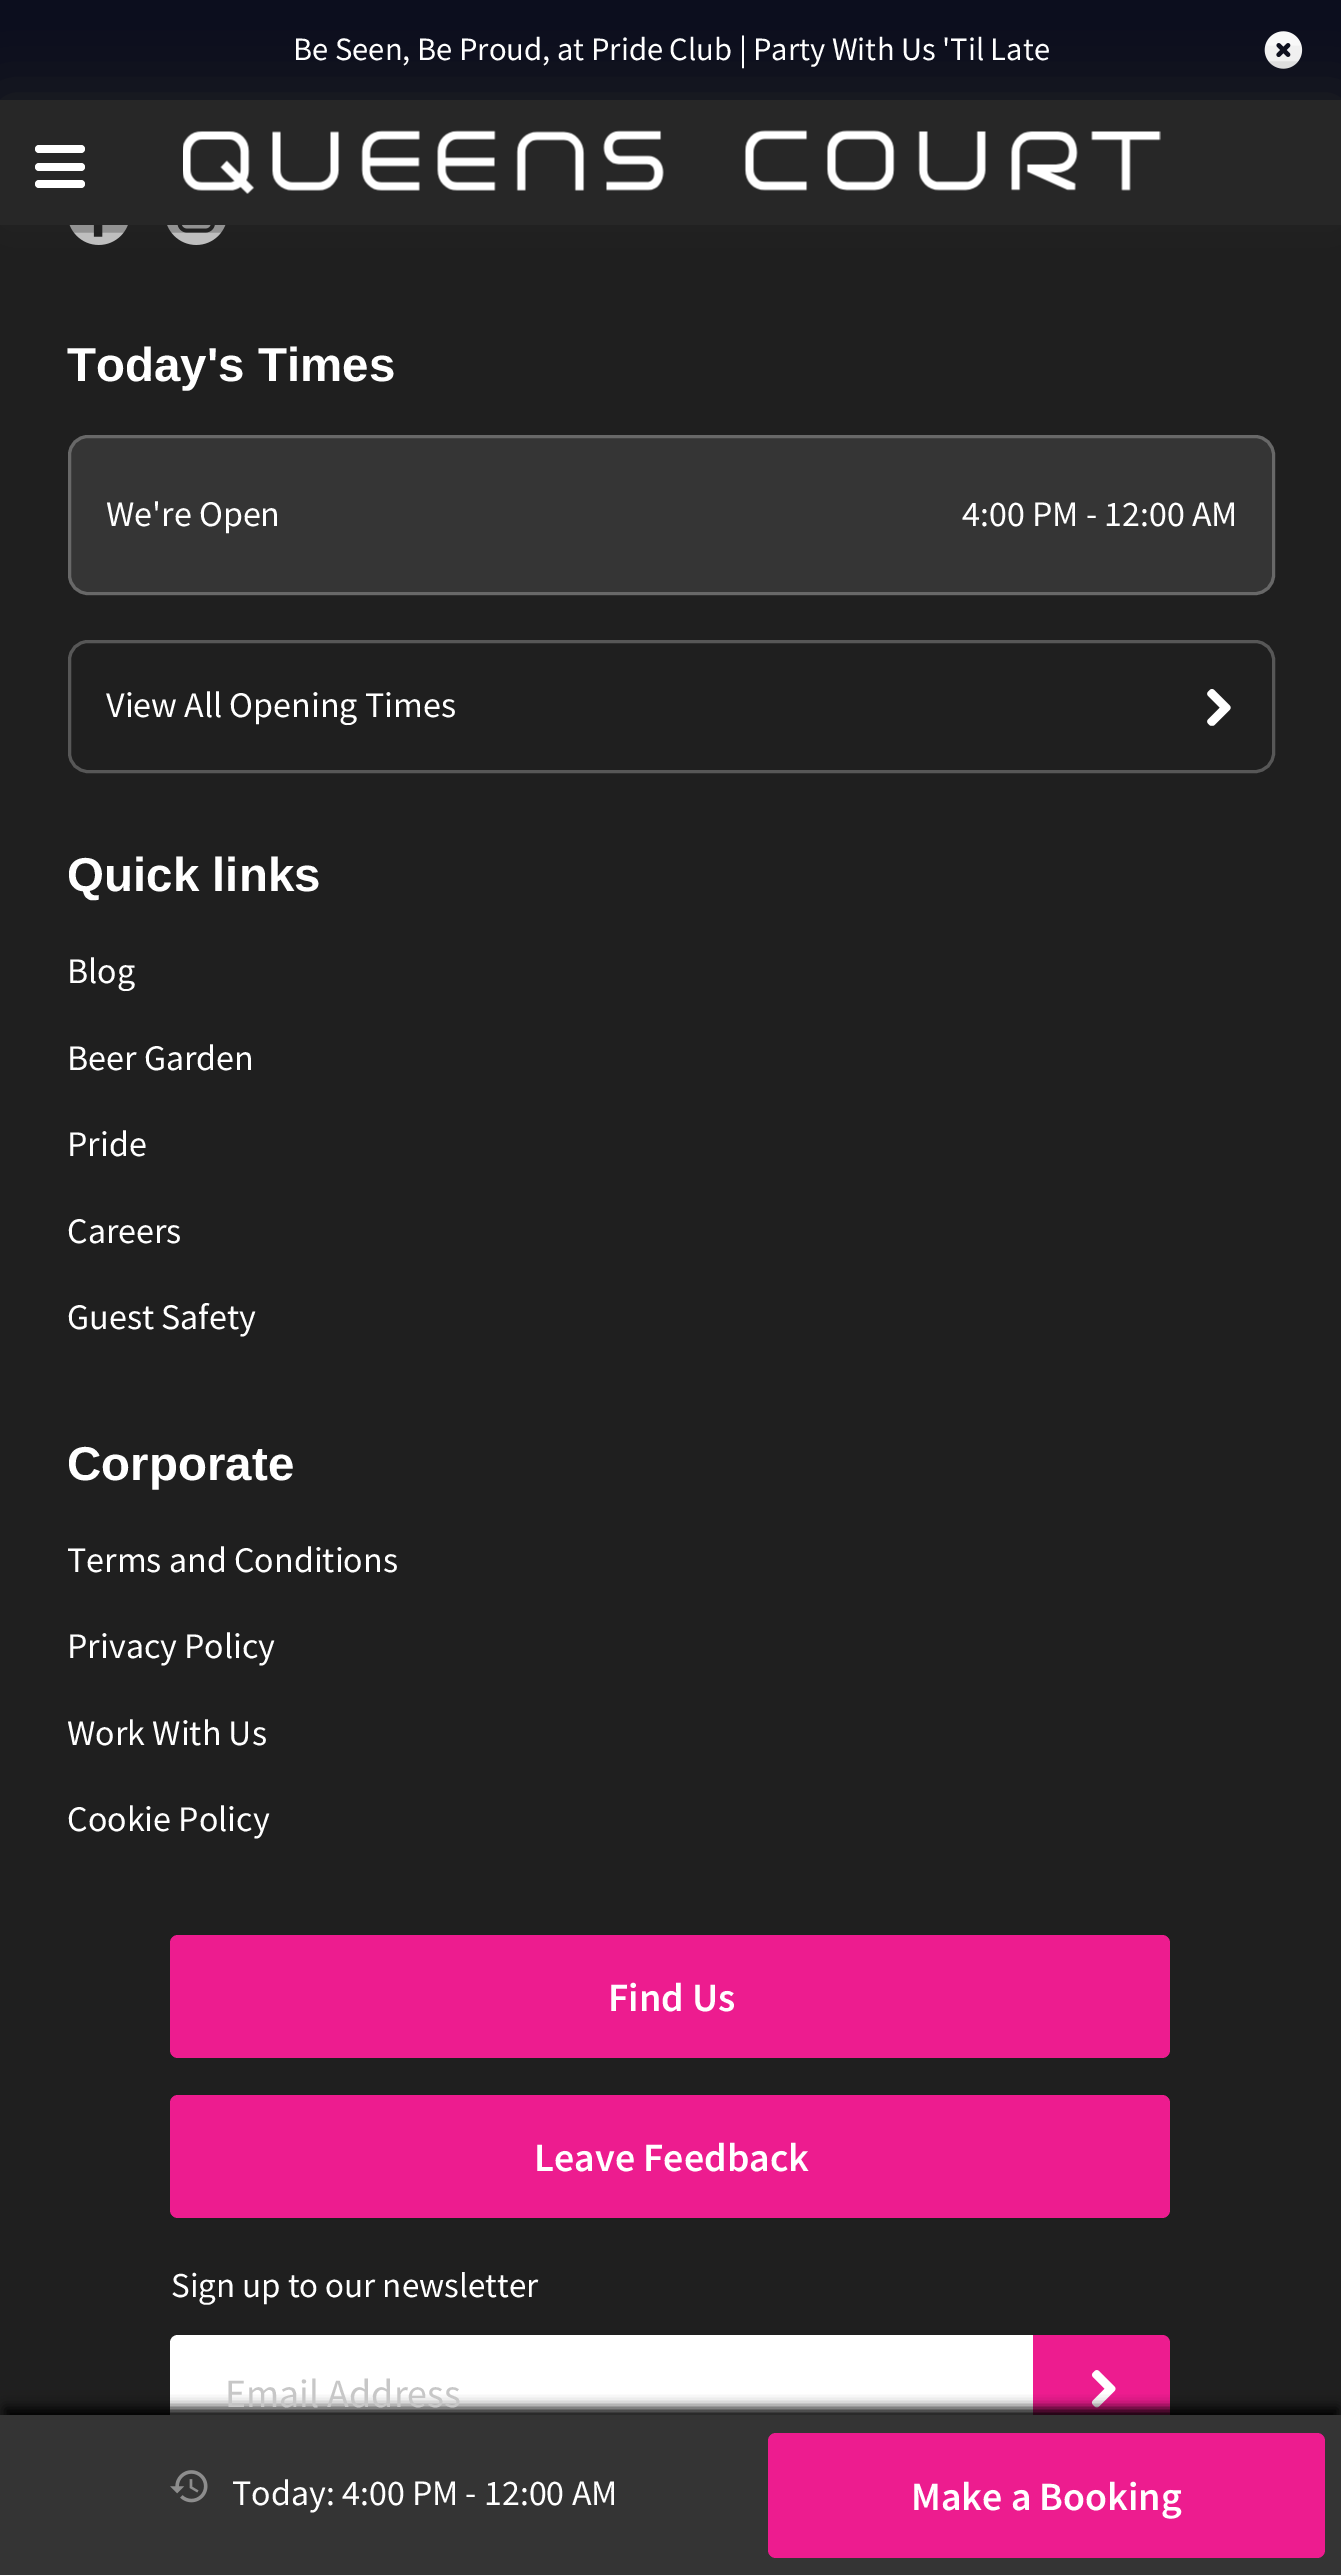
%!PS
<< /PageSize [1341 2575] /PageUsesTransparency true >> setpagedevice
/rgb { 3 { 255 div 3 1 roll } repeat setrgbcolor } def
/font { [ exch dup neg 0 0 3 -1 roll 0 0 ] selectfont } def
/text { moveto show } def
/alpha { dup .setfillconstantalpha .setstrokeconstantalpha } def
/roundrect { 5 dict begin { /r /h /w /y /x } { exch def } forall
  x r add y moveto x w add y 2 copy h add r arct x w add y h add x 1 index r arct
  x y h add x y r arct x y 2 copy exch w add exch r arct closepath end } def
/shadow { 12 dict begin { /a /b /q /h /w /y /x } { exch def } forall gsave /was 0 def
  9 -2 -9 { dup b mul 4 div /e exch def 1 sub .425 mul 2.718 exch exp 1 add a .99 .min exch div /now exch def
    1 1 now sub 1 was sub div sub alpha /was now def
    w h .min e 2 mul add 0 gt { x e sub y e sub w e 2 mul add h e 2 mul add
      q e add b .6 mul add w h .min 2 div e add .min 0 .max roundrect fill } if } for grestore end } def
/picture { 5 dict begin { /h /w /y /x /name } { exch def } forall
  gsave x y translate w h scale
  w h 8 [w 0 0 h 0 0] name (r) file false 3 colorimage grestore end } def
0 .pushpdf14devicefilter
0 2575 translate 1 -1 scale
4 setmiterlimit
31 31 31 rgb
0 0 1341 2575 rectfill
39 39 39 rgb
0 100 1341 125 rectfill
12 14 30 rgb
0 0 1341 100 rectfill
(img_02.rgb) 1264 31 39 38 picture
(img_03.rgb) 69 225 59 20 picture
(img_04.rgb) 167 225 59 20 picture
gsave
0 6 moveto 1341 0 rlineto 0 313 rlineto -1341 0 rlineto closepath 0 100 moveto 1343 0 rlineto 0 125 rlineto -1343 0 rlineto closepath eoclip newpath
34 34 34 rgb
0 100 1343 125 0 31 1 shadow
grestore
(img_01.rgb) 183 130 978 64 picture
255 255 255 rgb
35 145 50 8 4 roundrect fill
35 163 50 8 4 roundrect fill
35 180 50 8 4 roundrect fill
53 53 53 rgb
68 435 1207 160 20 roundrect fill
0.25 alpha
255 255 255 rgb
3 setlinewidth
69.5 436.5 1204 157 18.5 roundrect stroke
1 alpha
87 87 87 rgb
69.5 641.5 1204 130 18.5 roundrect stroke
(img_05.rgb) 1207 689 24 37 picture
237 28 143 rgb
170 1935 1000 123 8 roundrect fill
170 2095 1000 123 8 roundrect fill
255 255 255 rgb
178 2335 moveto 855 0 rlineto 0 113 rlineto -855 0 rlineto -4.5 0 -8 -3.5 -8 -8 rcurveto 0 -97 rlineto 0 -4.5 3.5 -8 8 -8 rcurveto closepath fill
237 28 143 rgb
1033 2335 moveto 129 0 rlineto 4.5 0 8 3.5 8 8 rcurveto 0 97 rlineto 0 4.5 -3.5 8 -8 8 rcurveto -129 0 rlineto closepath fill
(img_06.rgb) 1091 2370 25 38 picture
0 0 0 rgb
5 2408 1333 150 0 6 1 shadow
52 52 52 rgb
0 2415 1341 160 rectfill
(img_07.rgb) 170 2470 38 33 picture
237 28 143 rgb
768 2433 557 125 8 roundrect fill
/SourceSansPro-Regular 32.6 font
255 255 255 rgb
(Be Seen, Be Proud, at Pride Club | Party With Us 'Til Late) 293 60 text
/LiberationSans-Bold 47.5 font
(Today's Times) 67 381 text
/SourceSansPro-Regular 36 font
(We're Open) 106 526 text
(4:00 PM - 12:00 AM) 962 526 text
(View All Opening Times) 106 717 text
/LiberationSans-Bold 47.5 font
(Quick links) 67 891 text
/SourceSansPro-Regular 36 font
(Blog) 67 983 text
(Beer Garden) 67 1070 text
(Pride) 67 1156 text
(Careers) 67 1243 text
(Guest Safety) 67 1329 text
/LiberationSans-Bold 47.5 font
(Corporate) 67 1480 text
/SourceSansPro-Regular 36 font
(Terms and Conditions) 67 1572 text
(Privacy Policy) 67 1658 text
(Work With Us) 67 1745 text
(Cookie Policy) 67 1831 text
/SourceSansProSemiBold-SemiBold 40 font
(Find Us) 608 2011 text
(Leave Feedback) 534 2171 text
/SourceSansPro-Regular 35 font
(Sign up to our newsletter) 171 2297 text
/SourceSansPro-Regular 40 font
199 199 199 rgb
(Email Address) 225 2407 text
/SourceSansPro-Regular 36 font
255 255 255 rgb
(Today: 4:00 PM - 12:00 AM) 232 2505 text
/SourceSansProSemiBold-SemiBold 40 font
(Make a Booking) 911 2510 text
.poppdf14devicefilter showpage
